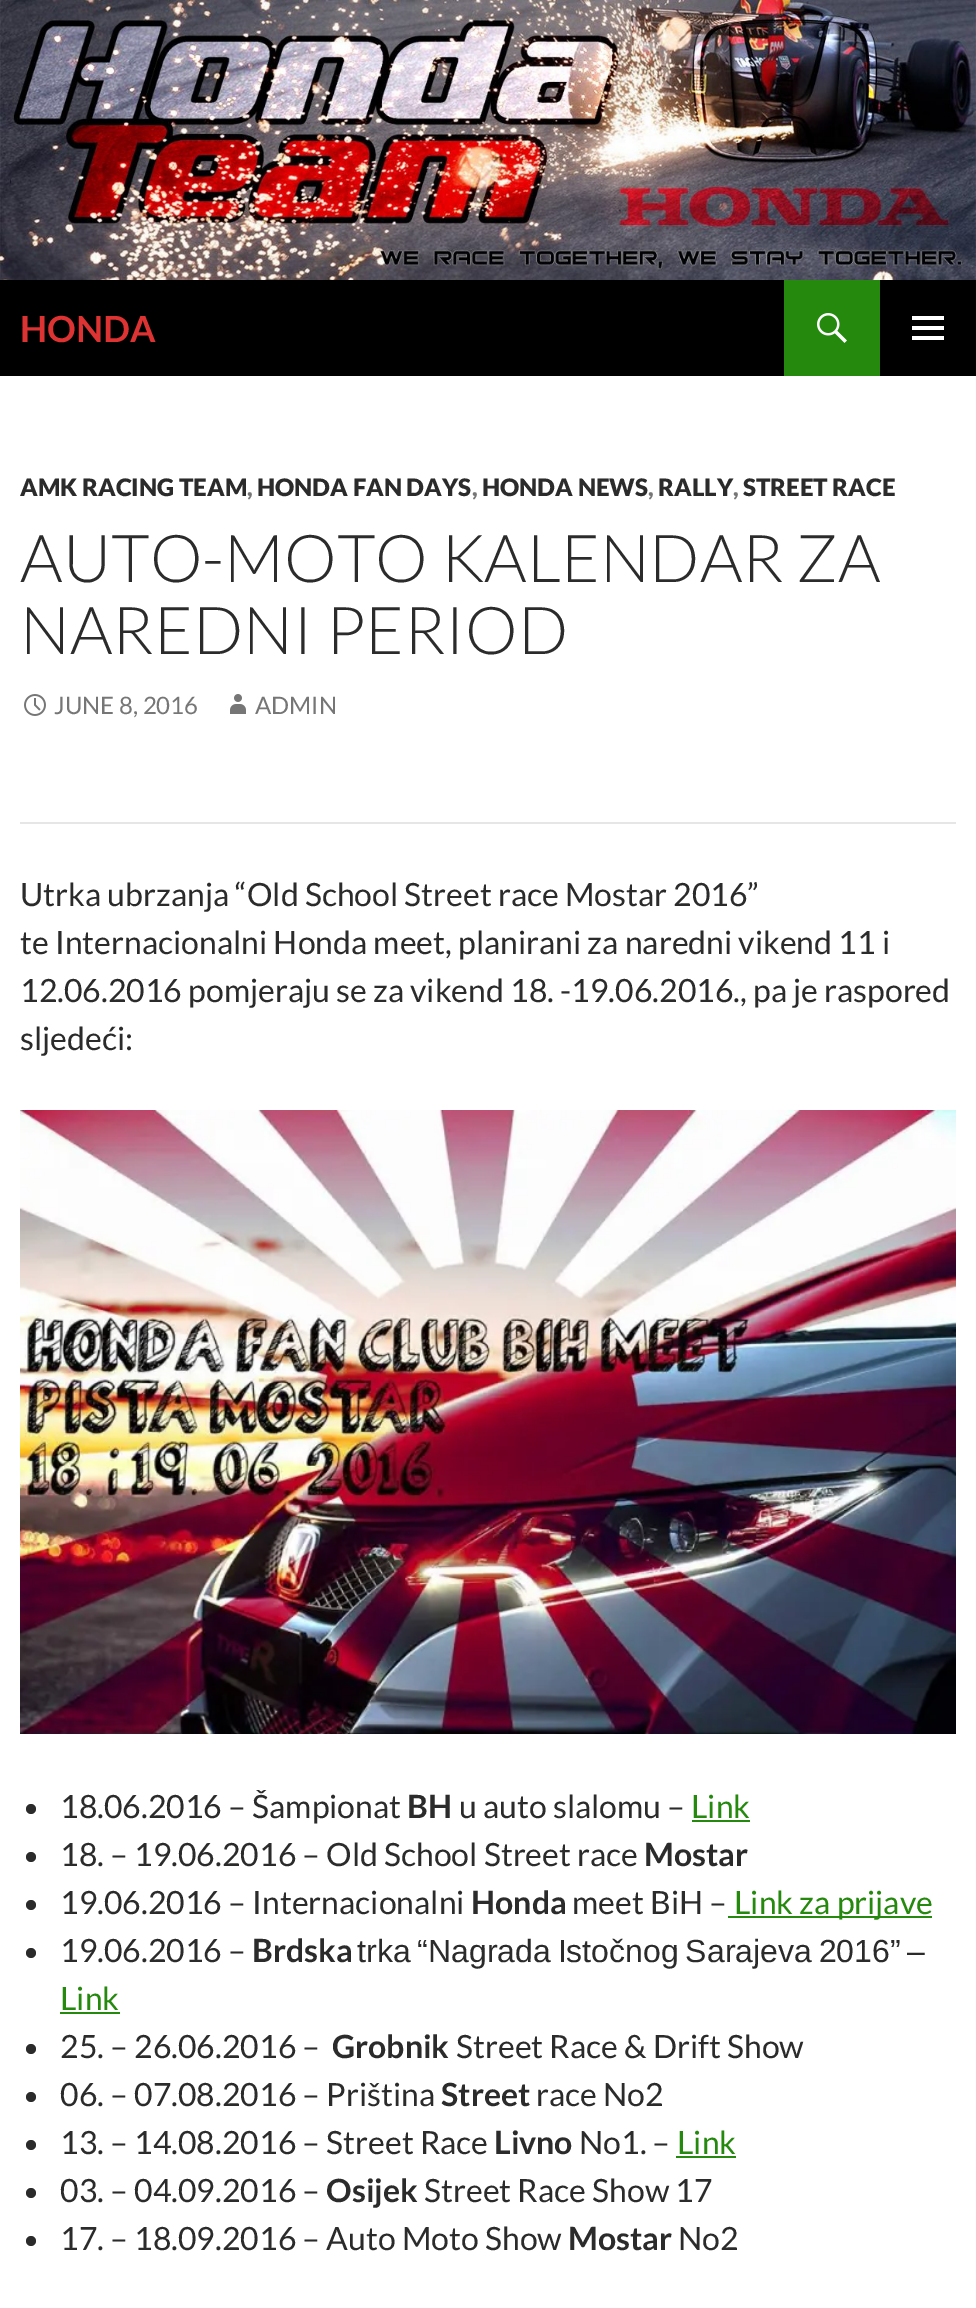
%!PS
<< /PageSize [976 2308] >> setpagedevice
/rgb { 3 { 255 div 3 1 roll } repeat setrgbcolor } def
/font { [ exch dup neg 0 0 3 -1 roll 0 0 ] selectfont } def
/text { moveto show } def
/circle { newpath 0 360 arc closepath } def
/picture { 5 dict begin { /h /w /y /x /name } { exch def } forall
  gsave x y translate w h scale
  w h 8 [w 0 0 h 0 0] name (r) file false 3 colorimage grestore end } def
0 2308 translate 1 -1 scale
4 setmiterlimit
255 255 255 rgb
0 0 976 2308 rectfill
(img_01.rgb) 0 0 976 280 picture
0 0 0 rgb
0 280 976 96 rectfill
36 137 13 rgb
784 280 96 96 rectfill
(img_02.rgb) 817 313 30 30 picture
(img_03.rgb) 912 316 32 24 picture
(img_04.rgb) 24 694 22 22 picture
(img_05.rgb) 230 694 16 20 picture
230 230 230 rgb
20 822 936 2 rectfill
(img_06.rgb) 20 1110 936 624 picture
43 43 43 rgb
31 1809 5 circle fill
36 137 13 rgb
692 1820 58 2 rectfill
43 43 43 rgb
31 1857 5 circle fill
31 1905 5 circle fill
36 137 13 rgb
728 1916 204 2 rectfill
43 43 43 rgb
31 1953 5 circle fill
36 137 13 rgb
60 2012 60 2 rectfill
43 43 43 rgb
31 2049 5 circle fill
31 2097 5 circle fill
31 2145 5 circle fill
36 137 13 rgb
676 2156 60 2 rectfill
43 43 43 rgb
31 2193 5 circle fill
31 2241 5 circle fill
/Lato-Bold 36 font
221 51 51 rgb
(HONDA) 20 342 text
/Lato-Black 24 font
43 43 43 rgb
(AMK RACING TEAM) 20 496 text
118 118 118 rgb
(,) 247 496 text
43 43 43 rgb
(HONDA FAN DAYS) 257 496 text
118 118 118 rgb
(,) 472 496 text
43 43 43 rgb
(HONDA NEWS) 482 496 text
118 118 118 rgb
(,) 648 496 text
43 43 43 rgb
(RALLY) 658 496 text
118 118 118 rgb
(,) 733 496 text
43 43 43 rgb
(STREET RACE) 743 496 text
/Lato-Light 66 font
(AUTO-MOTO KALENDAR ZA) 20 582 text
(NAREDNI PERIOD) 20 654 text
/Lato-Regular 24 font
118 118 118 rgb
(JUNE 8, 2016) 54 714 text
(ADMIN) 255 714 text
/Lato-Regular 32 font
43 43 43 rgb
(Utrka ubrzanja “Old School Street race Mostar 2016”) 20 906 text
(te Internacionalni Honda meet, planirani za naredni vikend 11 i) 20 954 text
(12.06.2016 pomjeraju se za vikend 18. -19.06.2016., pa je raspored) 20 1002 text
(sljedeći:) 20 1050 text
(18.06.2016 – Šampionat) 60 1818 text
/Lato-Bold 32 font
(BH) 407 1818 text
/Lato-Regular 32 font
(u auto slalomu –) 459 1818 text
36 137 13 rgb
(Link) 691 1818 text
43 43 43 rgb
(18. – 19.06.2016 – Old School Street race) 60 1866 text
/Lato-Bold 32 font
(Mostar) 644 1866 text
/Lato-Regular 32 font
(19.06.2016 – Internacionalni) 60 1914 text
/Lato-Bold 32 font
(Honda) 471 1914 text
/Lato-Regular 32 font
(meet BiH –) 572 1914 text
36 137 13 rgb
(Link za prijave) 734 1914 text
43 43 43 rgb
(19.06.2016 –) 60 1962 text
/Lato-Bold 32 font
(Brdska) 252 1962 text
/LiberationSans-Regular 32 font
357 1962 moveto -2 0 32 (trka “Nagrada Istočnog Sarajeva 2016” –) widthshow
/Lato-Regular 32 font
36 137 13 rgb
(Link) 60 2010 text
43 43 43 rgb
(25. – 26.06.2016 –) 60 2058 text
/Lato-Bold 32 font
(Grobnik) 332 2058 text
/Lato-Regular 32 font
(Street Race & Drift Show) 456 2058 text
(06. – 07.08.2016 – Priština) 60 2106 text
/Lato-Bold 32 font
(Street) 441 2106 text
/Lato-Regular 32 font
(race No2) 536 2106 text
(13. – 14.08.2016 – Street Race) 60 2154 text
/Lato-Bold 32 font
(Livno) 494 2154 text
/Lato-Regular 32 font
(No1. –) 579 2154 text
36 137 13 rgb
(Link) 677 2154 text
43 43 43 rgb
(03. – 04.09.2016 –) 60 2202 text
/Lato-Bold 32 font
(Osijek) 326 2202 text
/Lato-Regular 32 font
(Street Race Show 17) 424 2202 text
(17. – 18.09.2016 – Auto Moto Show) 60 2250 text
/Lato-Bold 32 font
(Mostar) 568 2250 text
/Lato-Regular 32 font
(No2) 678 2250 text
showpage
